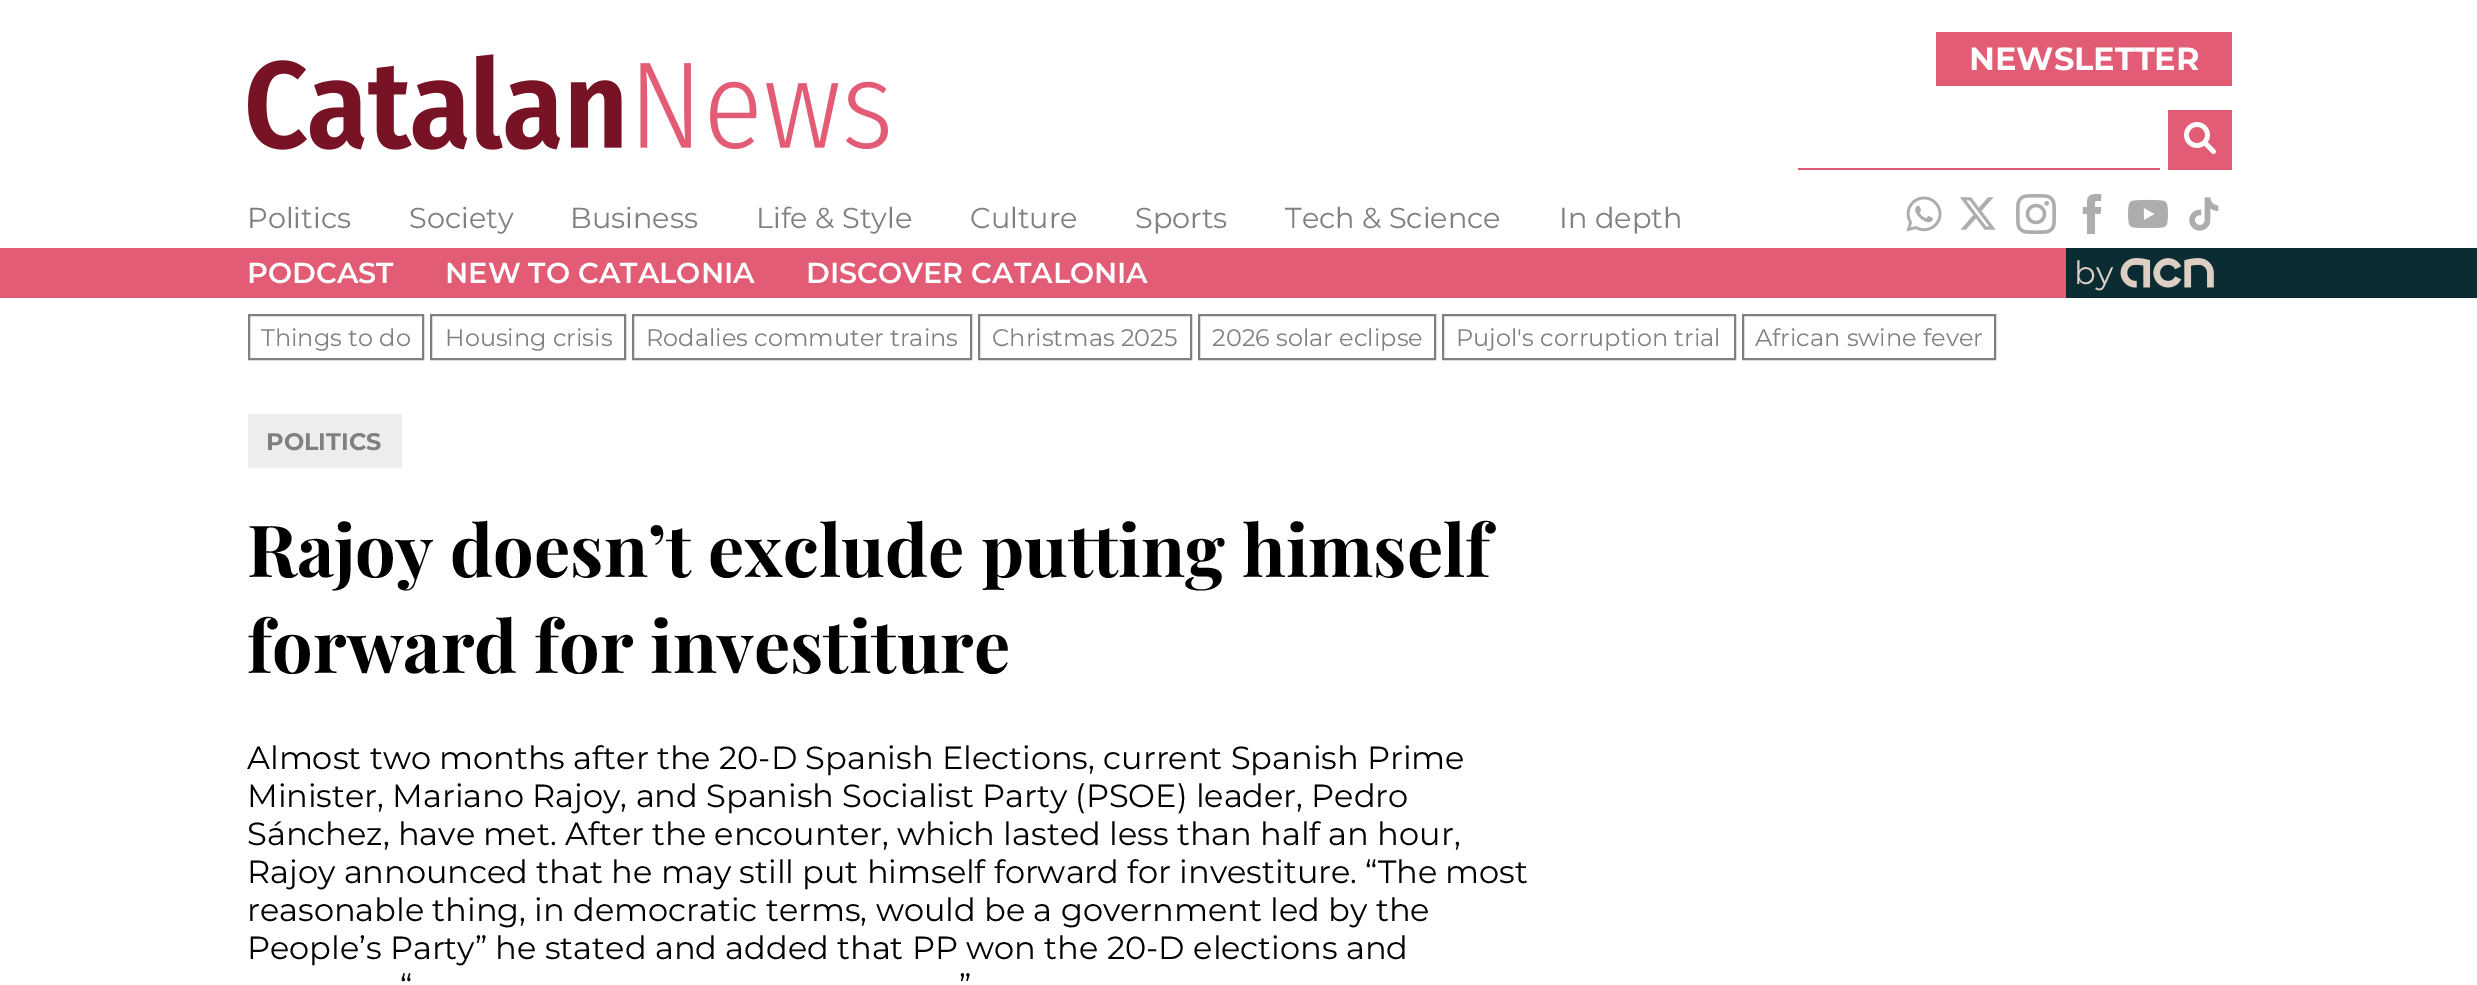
%!PS
<< /PageSize [2477 985] >> setpagedevice
/rgb { 3 { 255 div 3 1 roll } repeat setrgbcolor } def
/font { [ exch dup neg 0 0 3 -1 roll 0 0 ] selectfont } def
/text { moveto show } def
/picture { 5 dict begin { /h /w /y /x /name } { exch def } forall
  gsave x y translate w h scale
  w h 8 [w 0 0 h 0 0] name (r) file false 3 colorimage grestore end } def
0 985 translate 1 -1 scale
4 setmiterlimit
255 255 255 rgb
0 0 2477 985 rectfill
(img_01.rgb) 248 54 640 96 picture
226 92 117 rgb
1936 32 296 54 rectfill
1798 168 362 2 rectfill
2168 110 64 60 rectfill
(img_02.rgb) 2184 122 32 32 picture
(img_03.rgb) 1906 196 36 36 picture
(img_04.rgb) 1960 197 36 33 picture
(img_05.rgb) 2016 194 40 40 picture
(img_06.rgb) 2082 194 20 40 picture
(img_07.rgb) 2128 199 40 30 picture
(img_08.rgb) 2189 197 30 34 picture
0 248 2066 50 rectfill
11 44 51 rgb
2066 248 411 50 rectfill
(img_09.rgb) 2120 258 94 30 picture
128 128 128 rgb
2 setlinewidth
249 315 174 44 rectstroke
431 315 194 44 rectstroke
633 315 338 44 rectstroke
979 315 212 44 rectstroke
1199 315 236 44 rectstroke
1443 315 292 44 rectstroke
1743 315 252 44 rectstroke
237 237 237 rgb
248 414 154 54 rectfill
/Montserrat-Bold 32 font
255 255 255 rgb
(NEWSLETTER) 1969 70 text
/Montserrat-Regular 28.75 font
128 128 128 rgb
(Politics) 247 228 text
(Society) 409 228 text
(Business) 570 228 text
(Life & Style) 756 228 text
(Culture) 970 228 text
(Sports) 1135 228 text
(Tech & Science) 1285 228 text
(In depth) 1559 228 text
/Montserrat-SemiBold 28.75 font
255 255 255 rgb
(PODCAST) 247 283 text
(NEW TO CATALONIA) 445 283 text
(DISCOVER CATALONIA) 806 283 text
/Montserrat-Regular 32 font
221 207 195 rgb
(by) 2074 284 text
/Montserrat-Regular 24 font
128 128 128 rgb
(Things to do) 261 346 text
(Housing crisis) 445 346 text
(Rodalies commuter trains) 646 346 text
(Christmas 2025) 992 346 text
(2026 solar eclipse) 1212 346 text
(Pujol's corruption trial) 1456 346 text
(African swine fever) 1755 346 text
/Montserrat-Bold 24 font
(POLITICS) 266 450 text
/PlayfairDisplay-Bold 72 font
0 0 0 rgb
(Rajoy doesn’t exclude putting himself) 247 577 text
(forward for investiture) 247 673 text
/Montserrat-Regular 32 font
(Almost two months after the 20-D Spanish Elections, current Spanish Prime) 247 769 text
(Minister, Mariano Rajoy, and Spanish Socialist Party \(PSOE\) leader, Pedro) 247 807 text
(Sánchez, have met. After the encounter, which lasted less than half an hour,) 247 845 text
(Rajoy announced that he may still put himself forward for investiture. “The most) 247 883 text
(reasonable thing, in democratic terms, would be a government led by the) 247 921 text
(People’s Party” he stated and added that PP won the 20-D elections and) 247 959 text
(“) 400 997 text
(”) 959 997 text
showpage
